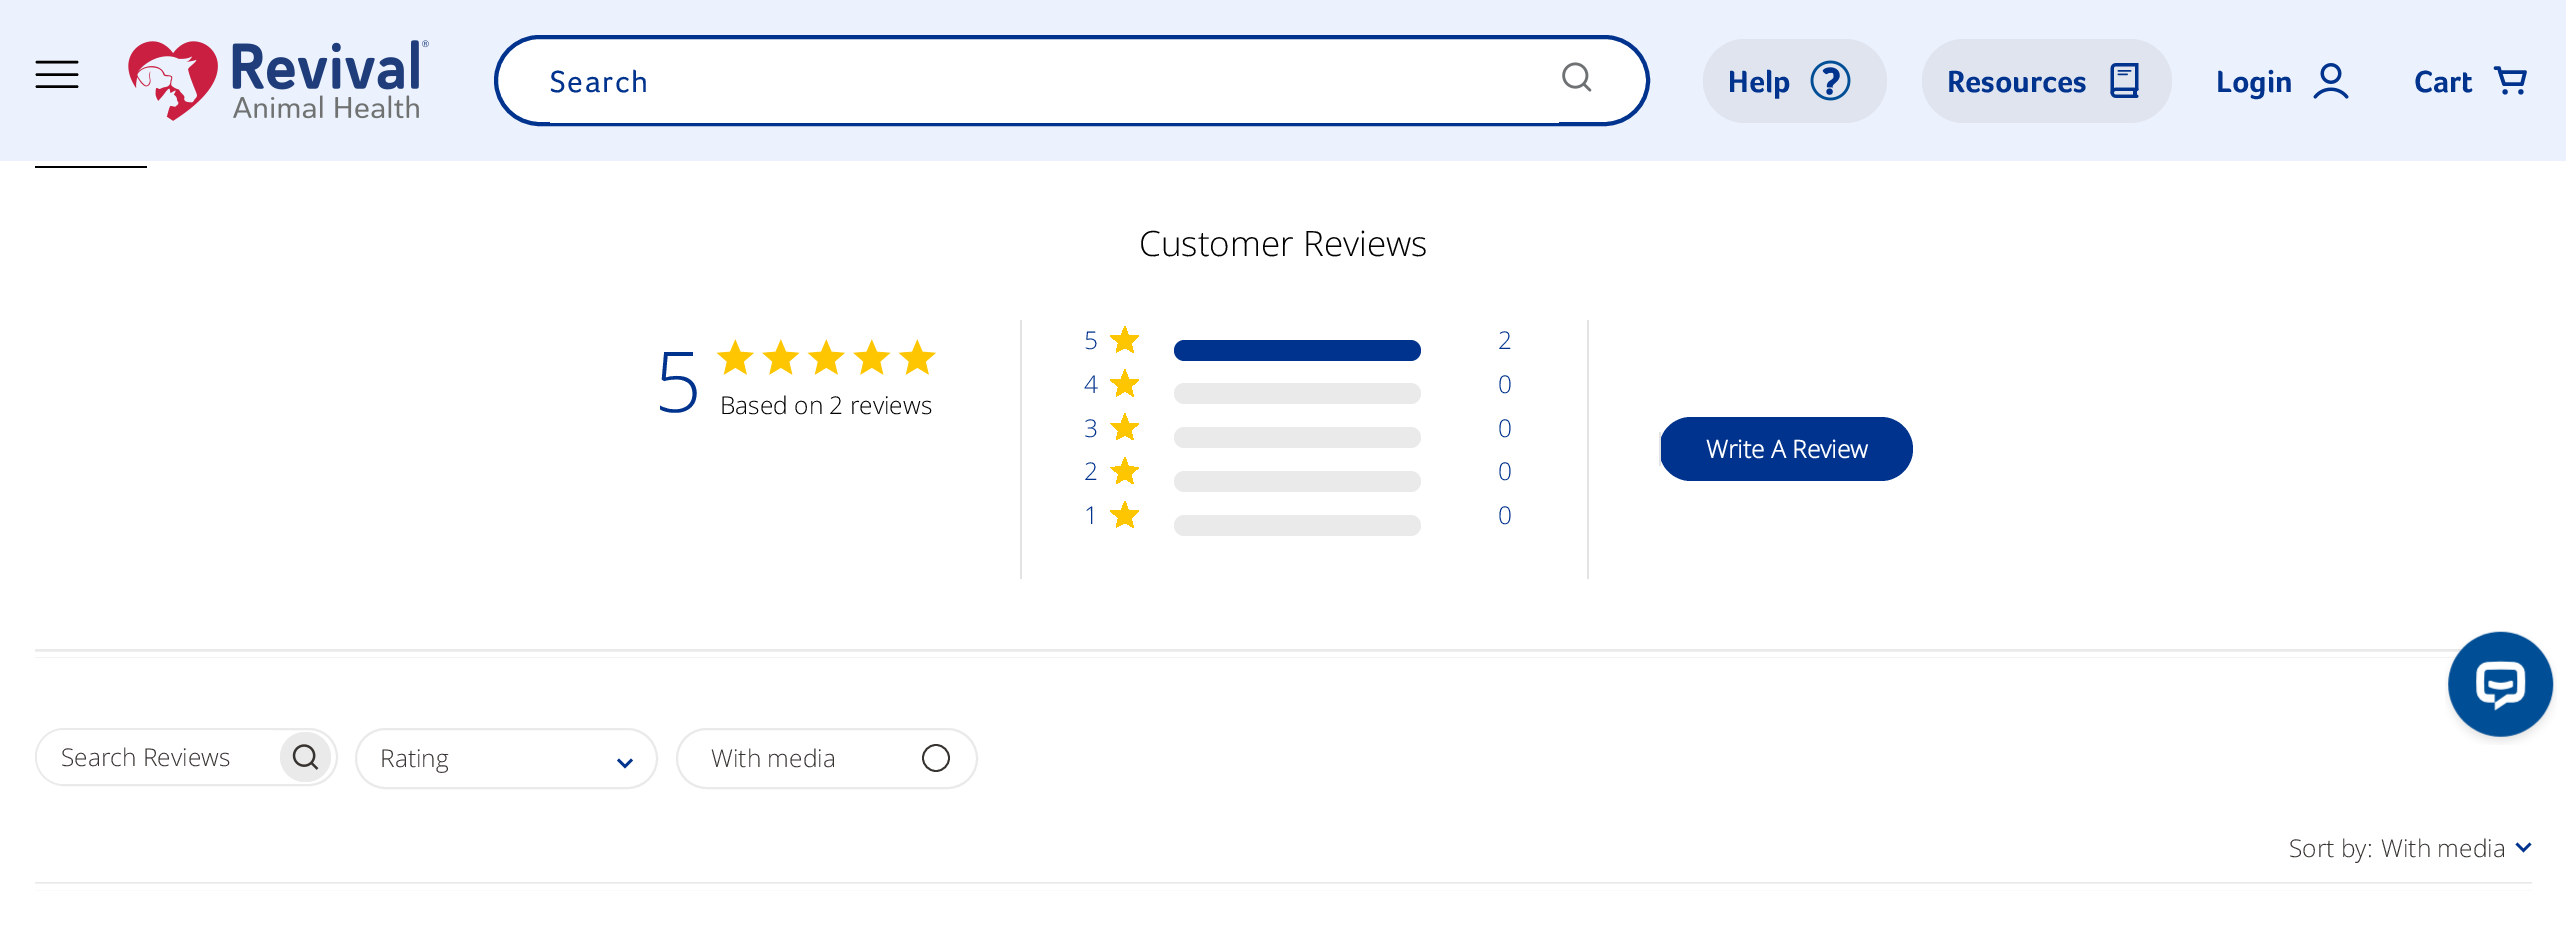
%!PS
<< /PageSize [2566 939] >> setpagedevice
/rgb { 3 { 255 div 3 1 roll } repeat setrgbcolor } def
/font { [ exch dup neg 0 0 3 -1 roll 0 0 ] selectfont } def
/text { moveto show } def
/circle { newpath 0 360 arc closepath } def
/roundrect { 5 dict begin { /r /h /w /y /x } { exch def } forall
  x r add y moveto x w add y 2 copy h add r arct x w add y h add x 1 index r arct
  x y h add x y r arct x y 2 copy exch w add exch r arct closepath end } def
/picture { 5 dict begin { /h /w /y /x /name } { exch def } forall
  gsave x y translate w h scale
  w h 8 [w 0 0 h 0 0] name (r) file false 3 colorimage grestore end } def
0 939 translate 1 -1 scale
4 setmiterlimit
255 255 255 rgb
0 0 2566 939 rectfill
235 242 253 rgb
0 0 2566 161 rectfill
0 0 0 rgb
2.6 setlinewidth
1 setlinecap
37 62 moveto 40 0 rlineto 37 74.5 moveto 40 0 rlineto 37 86.5 moveto 40 0 rlineto stroke
(img_01.rgb) 128 40 301 81 picture
255 255 255 rgb
496 37 1152 87 43.5 roundrect gsave fill grestore
0 51 141 rgb
4 setlinewidth
0 setlinecap
stroke
255 255 255 rgb
550 122 1009 1 rectfill
(img_02.rgb) 1562 62 30 30 picture
223 228 239 rgb
1703 39 184 84 42 roundrect fill
(img_03.rgb) 1810 60 41 41 picture
1922 39 250 84 42 roundrect fill
(img_04.rgb) 2110 63 29 35 picture
(img_05.rgb) 2313 63 36 36 picture
0 51 141 rgb
3.5 setlinewidth
1 setlinecap
1 setlinejoin
2495.5 68 moveto 3.5 0 rlineto 1 4 rlineto 2500 72 moveto 4 12 rlineto 18 0 rlineto 3 -12 rlineto closepath stroke
2505.1 91.9 2.6 circle fill
2520.9 91.9 2.6 circle fill
0 0 0 rgb
35 166 112 2 rectfill
(img_06.rgb) 716 339 38 36 picture
(img_07.rgb) 762 339 38 36 picture
(img_06.rgb) 807 339 38 36 picture
(img_07.rgb) 853 339 38 36 picture
(img_06.rgb) 898 339 38 36 picture
227 227 227 rgb
1020 320 2 259 rectfill
1587 320 2 259 rectfill
gsave 1125 347.5 moveto 8.5 5 rlineto -2.5 -9.5 rlineto 8 -7 rlineto -10.5 -0.5 rlineto -3.5 -9.5 rlineto -4 9.5 rlineto -10.5 0.5 rlineto 8 7 rlineto -2.5 9.5 rlineto closepath clip newpath
<< /ShadingType 2 /ColorSpace /DeviceRGB /Coords [1111 326 1139 326] /Extend [true true] /Function << /FunctionType 2 /Domain [0 1] /C0 [0.996 0.776 0] /C1 [0.996 0.776 0] /N 1 >> >> shfill grestore
0 51 141 rgb
1174 340 247 21 10.5 roundrect fill
gsave 1125 391 moveto 8.5 5.5 rlineto -2.5 -10 rlineto 8 -6.5 rlineto -10.5 -1 rlineto -3.5 -9.5 rlineto -4 9.5 rlineto -10.5 1 rlineto 8 6.5 rlineto -2.5 10 rlineto closepath clip newpath
<< /ShadingType 2 /ColorSpace /DeviceRGB /Coords [1111 370 1139 370] /Extend [true true] /Function << /FunctionType 2 /Domain [0 1] /C0 [0.996 0.776 0] /C1 [0.996 0.776 0] /N 1 >> >> shfill grestore
234 234 234 rgb
1174 383 247 21 10.5 roundrect fill
gsave 1125 435 moveto 8.5 5 rlineto -2.5 -9.5 rlineto 8 -7 rlineto -10.5 -0.5 rlineto -3.5 -9.5 rlineto -4 9.5 rlineto -10.5 0.5 rlineto 8 7 rlineto -2.5 9.5 rlineto closepath clip newpath
<< /ShadingType 2 /ColorSpace /DeviceRGB /Coords [1111 413 1139 413] /Extend [true true] /Function << /FunctionType 2 /Domain [0 1] /C0 [0.996 0.776 0] /C1 [0.996 0.776 0] /N 1 >> >> shfill grestore
1174 427 247 21 10.5 roundrect fill
gsave 1125 478.5 moveto 8.5 5.5 rlineto -2.5 -10 rlineto 8 -6.5 rlineto -10.5 -1 rlineto -3.5 -9.5 rlineto -4 9.5 rlineto -10.5 1 rlineto 8 6.5 rlineto -2.5 10 rlineto closepath clip newpath
<< /ShadingType 2 /ColorSpace /DeviceRGB /Coords [1111 457 1139 457] /Extend [true true] /Function << /FunctionType 2 /Domain [0 1] /C0 [0.996 0.776 0] /C1 [0.996 0.776 0] /N 1 >> >> shfill grestore
1174 471 247 21 10.5 roundrect fill
gsave 1125 522.5 moveto 8.5 5 rlineto -2.5 -9.5 rlineto 8 -7 rlineto -10.5 -0.5 rlineto -3.5 -9.5 rlineto -4 9.5 rlineto -10.5 0.5 rlineto 8 7 rlineto -2.5 9.5 rlineto closepath clip newpath
<< /ShadingType 2 /ColorSpace /DeviceRGB /Coords [1111 501 1139 501] /Extend [true true] /Function << /FunctionType 2 /Domain [0 1] /C0 [0.996 0.776 0] /C1 [0.996 0.776 0] /N 1 >> >> shfill grestore
1174 515 247 21 10.5 roundrect fill
0 51 141 rgb
1659 417 254 64 32 roundrect fill
227 227 227 rgb
1659 432 2 34 rectfill
(img_08.rgb) 35 649 2428 9 picture
234 234 234 rgb
2 setlinewidth
0 setlinecap
0 setlinejoin
36 729 301 56 28 roundrect stroke
255 255 255 rgb
64 730 moveto 209 0 rlineto 0 54 rlineto -209 0 rlineto -15 0 -27 -12 -27 -27 rcurveto 0 -15 12 -27 27 -27 rcurveto closepath fill
234 234 234 rgb
280 732 51 50 25 roundrect fill
(img_09.rgb) 292 744 27 26 picture
356 729 301 59 29.5 roundrect stroke
0 51 141 rgb
2.6 setlinewidth
618 759.5 moveto 7 7 rlineto 7 -7 rlineto stroke
234 234 234 rgb
2 setlinewidth
677 729 300 59 29.5 roundrect stroke
55 51 48 rgb
1.8 setlinewidth
936 758 13 circle stroke
0 51 141 rgb
2.6 setlinewidth
2516.5 843.5 moveto 7 7 rlineto 7 -7 rlineto stroke
(img_10.rgb) 35 882 2498 9 picture
(img_11.rgb) 2445 631 112 114 picture
/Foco-Regular 31.5 font
550 92 moveto 1.75 0 (Search) ashow
/Foco-Bold 31.5 font
(Help) 1728 92 text
(Resources) 1947 92 text
(Login) 2216 92 text
(Cart) 2414 92 text
/OpenSans-Light 35 font
0 0 0 rgb
(Customer Reviews) 1139 256 text
/OpenSans-Light 84 font
0 51 141 rgb
(5) 654 412 text
/OpenSans-Light 24.5 font
0 0 0 rgb
(Based on 2 reviews) 720 414 text
0 51 141 rgb
(5) 1084 349 text
(2) 1498 349 text
(4) 1084 393 text
(0) 1498 393 text
(3) 1084 437 text
(0) 1498 437 text
(2) 1084 480 text
(0) 1498 480 text
(1) 1084 524 text
(0) 1498 524 text
/OpenSans-Bold 24.5 font
255 255 255 rgb
(Write A Review) 1706 458 text
/OpenSans-Light 24.5 font
55 51 48 rgb
(Search Reviews) 61 766 text
(Rating) 380 767 text
(With media) 711 767 text
(Sort by:) 2289 857 text
(With media) 2381 857 text
showpage
